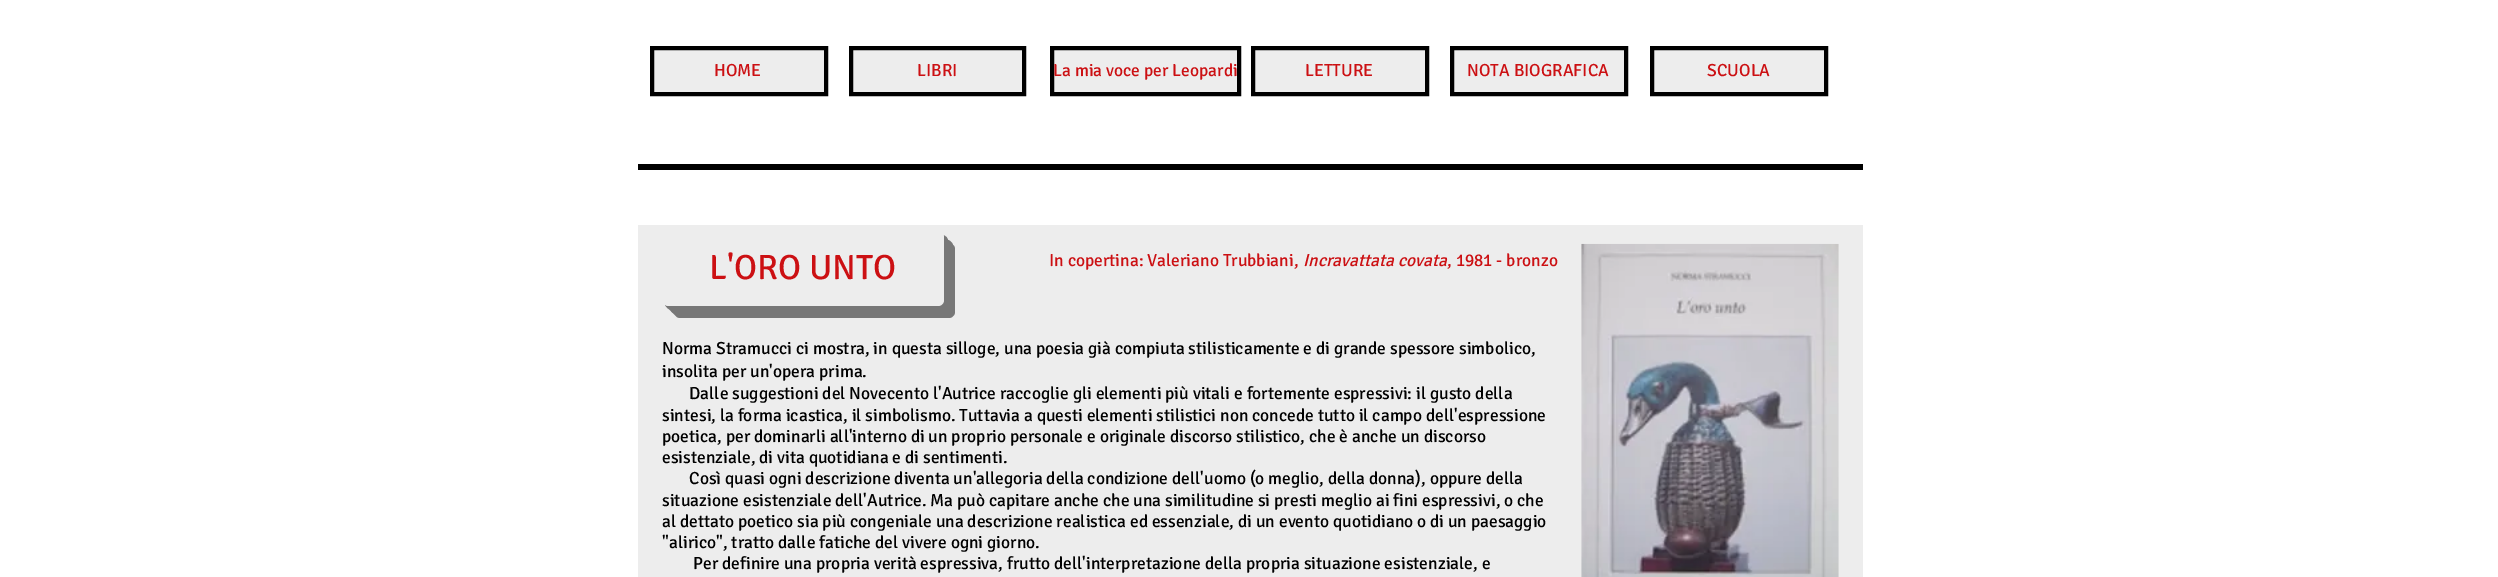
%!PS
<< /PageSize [2498 577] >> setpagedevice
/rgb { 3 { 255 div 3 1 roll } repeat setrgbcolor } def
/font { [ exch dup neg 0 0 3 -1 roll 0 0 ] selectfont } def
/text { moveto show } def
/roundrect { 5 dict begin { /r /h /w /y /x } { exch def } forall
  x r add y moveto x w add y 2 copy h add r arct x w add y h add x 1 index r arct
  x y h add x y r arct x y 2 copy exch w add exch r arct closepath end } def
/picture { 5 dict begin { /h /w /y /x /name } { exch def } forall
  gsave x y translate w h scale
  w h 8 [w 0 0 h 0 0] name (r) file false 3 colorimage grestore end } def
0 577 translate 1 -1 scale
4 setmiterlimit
255 255 255 rgb
0 0 2498 577 rectfill
237 237 237 rgb
652 48 moveto 174 0 rlineto 0 46 rlineto -174 0 rlineto closepath gsave fill grestore
0 0 0 rgb
4 setlinewidth
stroke
237 237 237 rgb
851 48 moveto 173 0 rlineto 0 46 rlineto -173 0 rlineto closepath gsave fill grestore
0 0 0 rgb
stroke
237 237 237 rgb
1052 48 moveto 187 0 rlineto 0 46 rlineto -187 0 rlineto closepath gsave fill grestore
0 0 0 rgb
stroke
237 237 237 rgb
1253 48 moveto 174 0 rlineto 0 46 rlineto -174 0 rlineto closepath gsave fill grestore
0 0 0 rgb
stroke
237 237 237 rgb
1452 48 moveto 174 0 rlineto 0 46 rlineto -174 0 rlineto closepath gsave fill grestore
0 0 0 rgb
stroke
237 237 237 rgb
1652 48 moveto 174 0 rlineto 0 46 rlineto -174 0 rlineto closepath gsave fill grestore
0 0 0 rgb
stroke
638 164 1225 6 rectfill
237 237 237 rgb
638 225 1225 352 rectfill
119 119 119 rgb
674 306 moveto 0 6 rlineto 0 3 3 6 6 6 rcurveto 269 0 rlineto 3 0 6 -3 6 -6 rcurveto 0 -63 rlineto 0 -3 -3 -6 -6 -6 rcurveto -5 0 rlineto 0 57 rlineto 0 3 -3 6 -6 6 rcurveto closepath fill
671 306 moveto 0 3 rlineto 0 3 3 6 6 6 rcurveto 270 0 rlineto 3 0 6 -3 6 -6 rcurveto 0 -63 rlineto 0 -3 -3 -6 -6 -6 rcurveto -3 0 rlineto 0 60 rlineto 0 3 -3 6 -6 6 rcurveto closepath fill
669 306 moveto 0 1 rlineto 0 3 3 6 6 6 rcurveto 269 0 rlineto 3 0 6 -3 6 -6 rcurveto 0 -63 rlineto 0 -3 -3 -6 -6 -6 rcurveto 0 62 rlineto 0 3 -3 6 -6 6 rcurveto closepath fill
666 306 moveto 1 2 3 4 6 4 rcurveto 270 0 rlineto 3 0 6 -3 6 -6 rcurveto 0 -63 rlineto 0 -3 -2 -5 -5 -6 rcurveto 1 3 rlineto 0 62 rlineto 0 3 -3 6 -6 6 rcurveto -269 0 rlineto closepath fill
665 305 moveto 1 2 3 3 5 3 rcurveto 269 0 rlineto 3 0 6 -3 6 -6 rcurveto 0 -63 rlineto 0 -2 -1 -3 -2 -4 rcurveto 1 3 rlineto 0 62 rlineto 0 3 -3 6 -6 6 rcurveto -269 0 rlineto -2 0 -3 0 -4 -1 rcurveto closepath fill
237 237 237 rgb
663 231 281 75 6 roundrect fill
(img_01.rgb) 1581 243 258 334 picture
/Signika-Regular 17.5 font
204 16 19 rgb
(HOME) 714 76 text
(LIBRI) 917 76 text
(La mia voce per Leopardi) 1053 76 text
(LETTURE) 1305 76 text
(NOTA BIOGRAFICA) 1467 76 text
(SCUOLA) 1707 76 text
/Signika-Regular 35 font
(L'ORO UNTO) 709 279 text
/Signika-Regular 17.5 font
(In copertina: Valeriano Trubbiani,) 1049 266 text
/Signika-Italic 17.5 font
(Incravattata covata) 1303 266 text
/Signika-Regular 17.5 font
(, 1981 - bronzo) 1447 266 text
0 0 0 rgb
(Norma Stramucci ci mostra, in questa silloge, una poesia già compiuta stilisticamente e di grande spessore simbolico,) 662 354 text
(insolita per un'opera prima.) 662 377 text
(Dalle suggestioni del Novecento l'Autrice raccoglie gli elementi più vitali e fortemente espressivi: il gusto della) 689 399 text
(sintesi, la forma icastica, il simbolismo. Tuttavia a questi elementi stilistici non concede tutto il campo dell'espressione) 662 421 text
(poetica, per dominarli all'interno di un proprio personale e originale discorso stilistico, che è anche un discorso) 662 442 text
(esistenziale, di vita quotidiana e di sentimenti.) 662 463 text
(Così quasi ogni descrizione diventa un'allegoria della condizione dell'uomo \(o meglio, della donna\), oppure della) 689 484 text
(situazione esistenziale dell'Autrice. Ma può capitare anche che una similitudine si presti meglio ai fini espressivi, o che) 662 506 text
(al dettato poetico sia più congeniale una descrizione realistica ed essenziale, di un evento quotidiano o di un paesaggio) 662 527 text
("alirico", tratto dalle fatiche del vivere ogni giorno.) 662 548 text
(Per definire una propria verità espressiva, frutto dell'interpretazione della propria situazione esistenziale, e) 693 569 text
showpage
